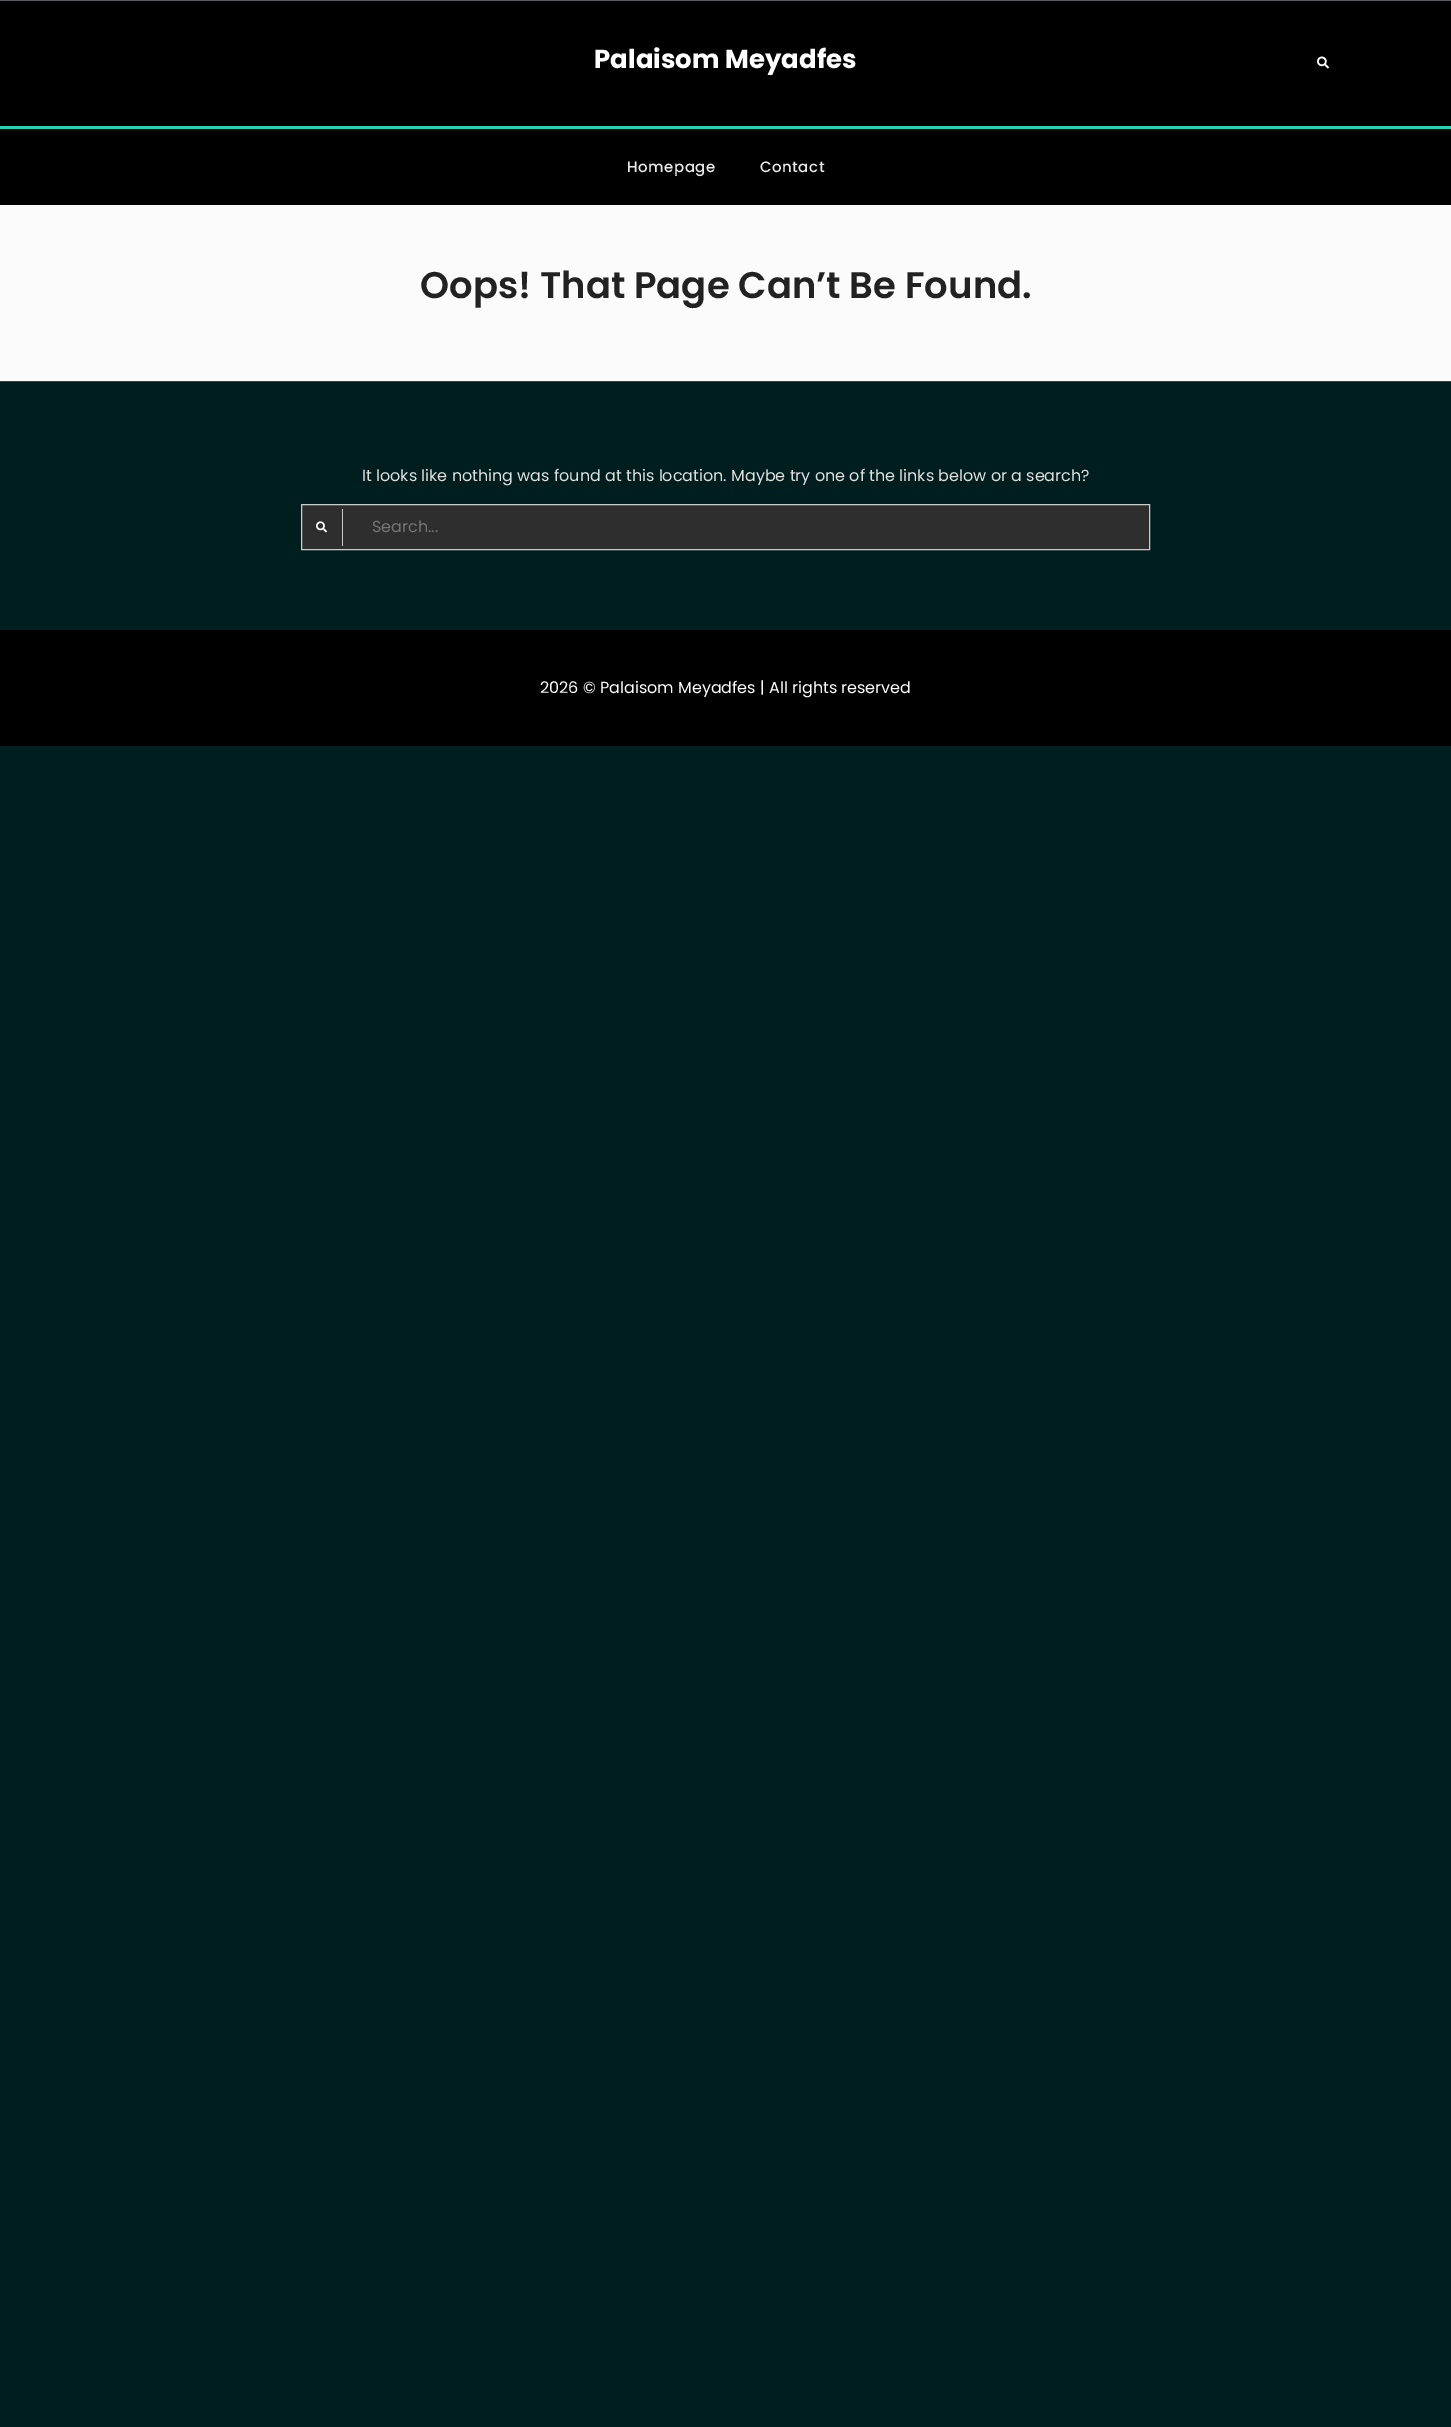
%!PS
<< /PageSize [1451 2427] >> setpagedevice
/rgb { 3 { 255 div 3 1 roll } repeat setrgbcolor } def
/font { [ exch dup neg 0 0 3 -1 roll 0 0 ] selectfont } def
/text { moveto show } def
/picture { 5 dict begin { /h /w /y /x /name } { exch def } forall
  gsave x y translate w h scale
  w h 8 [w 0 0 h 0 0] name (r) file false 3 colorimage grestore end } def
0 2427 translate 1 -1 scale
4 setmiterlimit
0 30 29 rgb
0 0 1451 2427 rectfill
88 89 92 rgb
0 0 1451 1 rectfill
0 0 0 rgb
0 1 1451 125 rectfill
(img_01.rgb) 1317 56 12 13 picture
0 129 1451 76 rectfill
37 213 178 rgb
0 126 1451 3 rectfill
251 251 251 rgb
0 205 1451 176 rectfill
62 63 66 rgb
0 381 1451 1 rectfill
47 46 46 rgb
301.5 504.5 moveto 848 0 rlineto 0 45 rlineto -848 0 rlineto closepath gsave fill grestore
204 204 204 rgb
stroke
342 509 1 37 rectfill
(img_02.rgb) 316 521 11 12 picture
0 0 0 rgb
0 630 1451 116 rectfill
/Poppins-Bold 26 font
255 255 255 rgb
(Palaisom Meyadfes) 594 68 text
/Poppins-Medium 15 font
234 234 234 rgb
627 172 moveto 0.5 0 (Homepage) ashow
760 172 moveto 0.5 0 (Contact) ashow
/Poppins-SemiBold 37 font
34 34 34 rgb
(Oops! That Page Can’t Be Found.) 420 298 text
/Poppins-Regular 16 font
224 224 224 rgb
(It looks like nothing was found at this location. Maybe try one of the links below or a search?) 362 481 text
117 117 117 rgb
(Search...) 372 532 text
255 255 255 rgb
(2026 © Palaisom Meyadfes | All rights reserved) 540 693 text
showpage
